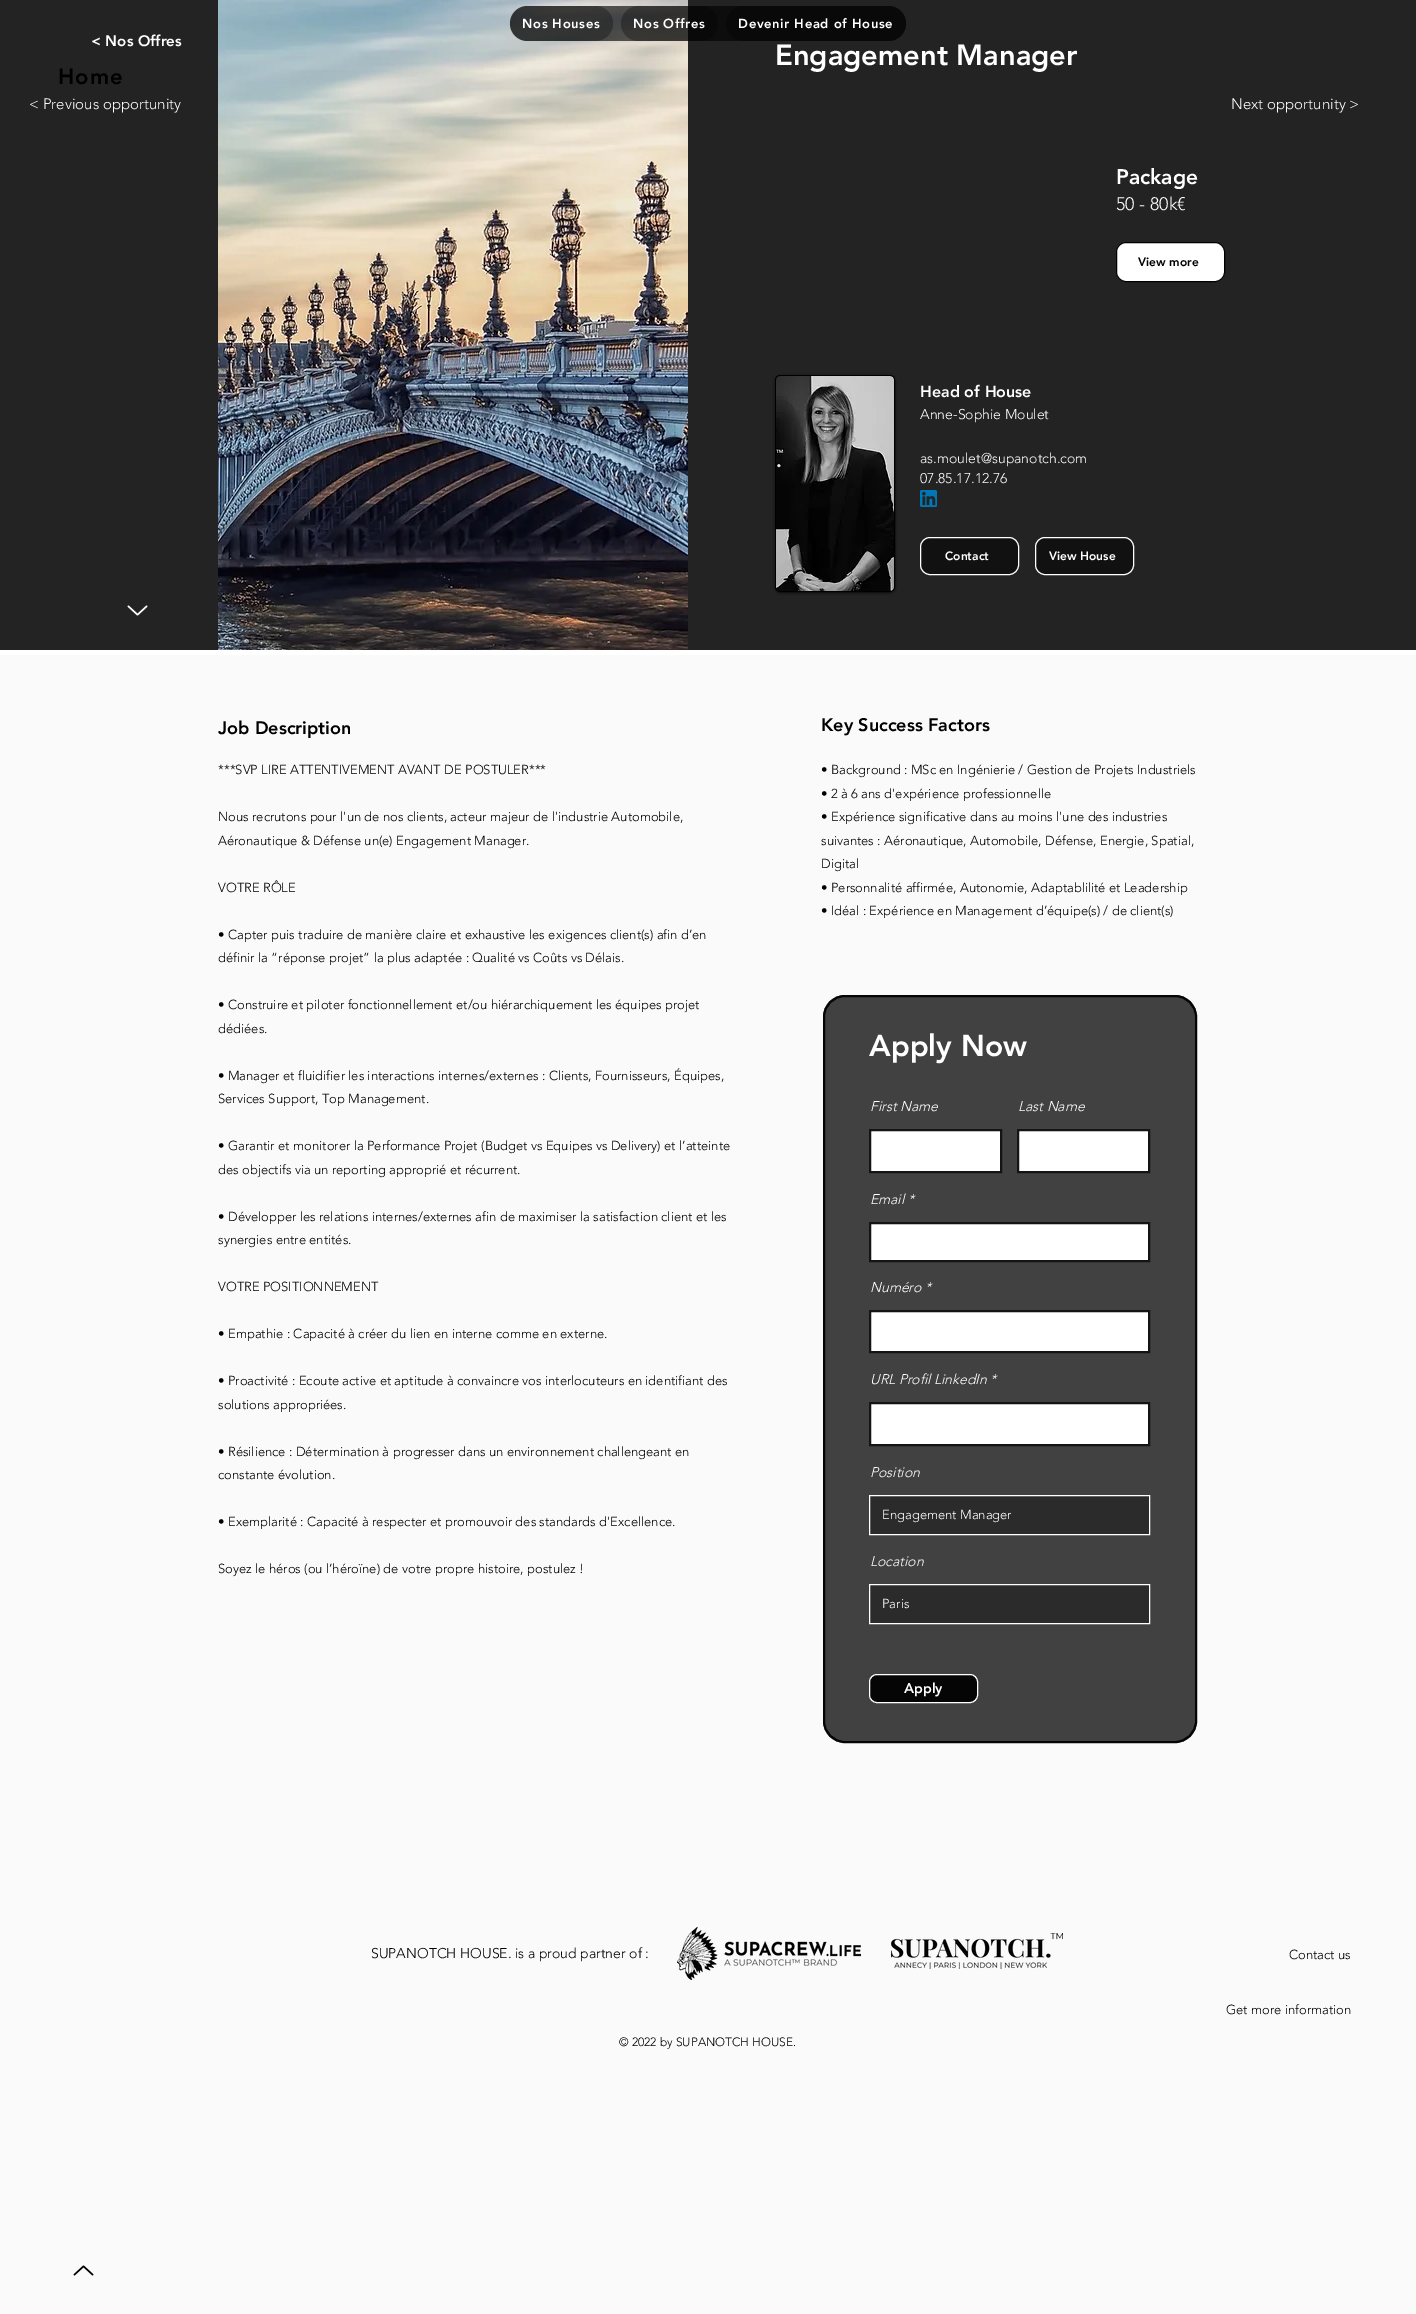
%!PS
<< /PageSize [1416 2314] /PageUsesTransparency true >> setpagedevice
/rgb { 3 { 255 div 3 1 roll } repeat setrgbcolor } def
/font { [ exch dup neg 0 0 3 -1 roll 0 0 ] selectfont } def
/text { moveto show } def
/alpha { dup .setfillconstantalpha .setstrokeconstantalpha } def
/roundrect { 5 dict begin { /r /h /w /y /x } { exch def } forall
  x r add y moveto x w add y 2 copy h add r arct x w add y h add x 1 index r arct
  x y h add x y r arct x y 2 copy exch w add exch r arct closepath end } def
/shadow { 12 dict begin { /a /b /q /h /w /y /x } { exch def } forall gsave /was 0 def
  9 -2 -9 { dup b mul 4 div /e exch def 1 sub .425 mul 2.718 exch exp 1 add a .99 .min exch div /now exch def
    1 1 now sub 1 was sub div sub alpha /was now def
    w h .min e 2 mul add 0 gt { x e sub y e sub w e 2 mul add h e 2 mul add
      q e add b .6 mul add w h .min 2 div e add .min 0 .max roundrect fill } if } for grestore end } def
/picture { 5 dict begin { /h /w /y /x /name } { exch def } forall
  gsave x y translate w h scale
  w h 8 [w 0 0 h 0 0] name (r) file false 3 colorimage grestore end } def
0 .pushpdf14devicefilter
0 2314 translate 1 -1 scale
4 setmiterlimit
250 250 250 rgb
0 0 1416 2314 rectfill
36 35 35 rgb
0 0 1416 650 rectfill
(img_01.rgb) 218 0 470 650 picture
0.63 alpha
0 0 0 rgb
510 6 396 35 17.5 roundrect fill
0.3 alpha
510 6 103 35 17.5 roundrect fill
621 6 97 35 17.5 roundrect fill
726 6 180 35 17.5 roundrect fill
1 alpha
255 255 255 rgb
1116.5 242.5 108 39 9.5 roundrect gsave fill grestore
0 0 0 rgb
stroke
775 376 120 217 5 1.5 0.5 shadow
775.5 375.5 119 216 4.5 roundrect stroke
(img_02.rgb) 776 376 118 215 picture
(img_03.rgb) 920 490 17 17 picture
18 17 17 rgb
920.5 537.5 98 37 9.5 roundrect gsave fill grestore
255 255 255 rgb
stroke
18 17 17 rgb
1035.5 537.5 98 37 9.5 roundrect gsave fill grestore
255 255 255 rgb
stroke
(img_04.rgb) 127 605 21 11 picture
0 650 1416 5 rectfill
65 65 65 rgb
823 995 374 748 22 roundrect fill
0.92 alpha
0 0 0 rgb
2 setlinewidth
824 996 372 746 21 roundrect stroke
1 alpha
255 255 255 rgb
870 1130 moveto 131 0 rlineto 0 42 rlineto -131 0 rlineto closepath gsave fill grestore
20 20 20 rgb
stroke
255 255 255 rgb
1018 1130 moveto 131 0 rlineto 0 42 rlineto -131 0 rlineto closepath gsave fill grestore
20 20 20 rgb
stroke
255 255 255 rgb
870 1223 moveto 279 0 rlineto 0 38 rlineto -279 0 rlineto closepath gsave fill grestore
20 20 20 rgb
stroke
255 255 255 rgb
870 1311 moveto 279 0 rlineto 0 41 rlineto -279 0 rlineto closepath gsave fill grestore
20 20 20 rgb
stroke
255 255 255 rgb
870 1403 moveto 279 0 rlineto 0 42 rlineto -279 0 rlineto closepath gsave fill grestore
20 20 20 rgb
stroke
43 43 43 rgb
869.5 1495.5 moveto 280 0 rlineto 0 39 rlineto -280 0 rlineto closepath gsave fill grestore
255 255 255 rgb
1 setlinewidth
stroke
43 43 43 rgb
869.5 1584.5 moveto 280 0 rlineto 0 39 rlineto -280 0 rlineto closepath gsave fill grestore
255 255 255 rgb
stroke
5 5 5 rgb
869.5 1674.5 108 28 7.5 roundrect gsave fill grestore
255 255 255 rgb
stroke
(img_05.rgb) 677 1927 184 53 picture
(img_06.rgb) 891 1933 172 36 picture
(img_07.rgb) 73 2265 21 11 picture
/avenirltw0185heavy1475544-Black 13 font
522 28 moveto 0.65 0 (Nos Houses) ashow
633 28 moveto 0.65 0 (Nos Offres) ashow
738 28 moveto 0.65 0 (Devenir Head of House) ashow
/avenirltw0185heavy1475544-Black 15 font
(< Nos Offres) 91 46 text
/avenirltw0185heavy1475544-Black 29 font
(Engagement Manager) 775 65 text
/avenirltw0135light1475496-Light 15 font
(< Previous opportunity) 29 109 text
(Next opportunity >) 1231 109 text
/avenirltw0185heavy1475544-Black 21 font
(Package) 1116 184 text
/avenirltw0135light1475496-Light 18 font
(50 - 80k€) 1116 210 text
/avenirltw0185heavy1475544-Black 12 font
0 0 0 rgb
(View more) 1138 266 text
/avenirltw0185heavy1475544-Black 16 font
255 255 255 rgb
(Head of House) 920 397 text
/avenirltw0135light1475496-Light 14 font
(Anne-Sophie Moulet) 920 419 text
(as.moulet@supanotch.com) 920 463 text
(07.85.17.12.76) 920 483 text
/avenirltw0185heavy1475544-Black 12 font
(Contact) 945 560 text
(View House) 1049 560 text
/avenirltw0185heavy1475544-Black 18 font
0 0 0 rgb
(Job Description) 218 734 text
(Key Success Factors) 821 731 text
/avenirltw0135light1475496-Light 13 font
(***SVP LIRE ATTENTIVEMENT AVANT DE POSTULER***) 218 774 text
(Nous recrutons pour l'un de nos clients, acteur majeur de l'industrie Automobile,) 218 821 text
(Aéronautique & Défense un\(e\) Engagement Manager.) 218 845 text
(VOTRE RÔLE) 218 892 text
(• Capter puis traduire de manière claire et exhaustive les exigences client\(s\) afin d’en) 218 939 text
(définir la “réponse projet” la plus adaptée : Qualité vs Coûts vs Délais.) 218 962 text
(• Construire et piloter fonctionnellement et/ou hiérarchiquement les équipes projet) 218 1009 text
(dédiées.) 218 1033 text
(• Manager et fluidifier les interactions internes/externes : Clients, Fournisseurs, Équipes,) 218 1080 text
(Services Support, Top Management.) 218 1103 text
(• Garantir et monitorer la Performance Projet \(Budget vs Equipes vs Delivery\) et l’atteinte) 218 1150 text
(des objectifs via un reporting approprié et récurrent.) 218 1174 text
(• Développer les relations internes/externes afin de maximiser la satisfaction client et les) 218 1221 text
(synergies entre entités.) 218 1244 text
(VOTRE POSITIONNEMENT) 218 1291 text
(• Empathie : Capacité à créer du lien en interne comme en externe.) 218 1338 text
(• Proactivité : Ecoute active et aptitude à convaincre vos interlocuteurs en identifiant des) 218 1385 text
(solutions appropriées.) 218 1409 text
(• Résilience : Détermination à progresser dans un environnement challengeant en) 218 1456 text
(constante évolution.) 218 1479 text
(• Exemplarité : Capacité à respecter et promouvoir des standards d'Excellence.) 218 1526 text
(Soyez le héros \(ou l’héroïne\) de votre propre histoire, postulez !) 218 1573 text
(• Background : MSc en Ingénierie / Gestion de Projets Industriels) 821 774 text
(• 2 à 6 ans d'expérience professionnelle) 821 798 text
(• Expérience significative dans au moins l'une des industries) 821 821 text
(suivantes : Aéronautique, Automobile, Défense, Energie, Spatial,) 821 845 text
(Digital) 821 868 text
(• Personnalité affirmée, Autonomie, Adaptablilité et Leadership) 821 892 text
(• Idéal : Expérience en Management d’équipe\(s\) / de client\(s\)) 821 915 text
/avenirltw0185heavy1475544-Black 30 font
255 255 255 rgb
(Apply Now) 869 1056 text
/avenirltw0135light1475496-LightItalic 14 font
(First Name) 870 1111 text
(Last Name) 1018 1111 text
(Email *) 870 1204 text
(Numéro *) 870 1292 text
(URL Profil LinkedIn *) 870 1384 text
(Position) 870 1477 text
/avenirltw0135light1475496-Light 13 font
(Engagement Manager) 882 1519 text
/avenirltw0135light1475496-LightItalic 14 font
(Location) 870 1566 text
/avenirltw0135light1475496-Light 13 font
(Paris) 882 1608 text
/avenirltw0185heavy1475544-Black 14 font
(Apply) 904 1693 text
/avenirltw0185heavy1475544-Black 22 font
0 0 0 rgb
58 84 moveto 1 0 (Home) ashow
/avenirltw0135light1475496-Light 14 font
(SUPANOTCH HOUSE. is a proud partner of :) 371 1958 text
/avenirltw0135light1475496-Light 13 font
(Contact us) 1289 1959 text
(Get more information) 1226 2014 text
/avenirltw0135light1475496-Light 12 font
(© 2022 by SUPANOTCH HOUSE.) 619 2046 text
.poppdf14devicefilter showpage
